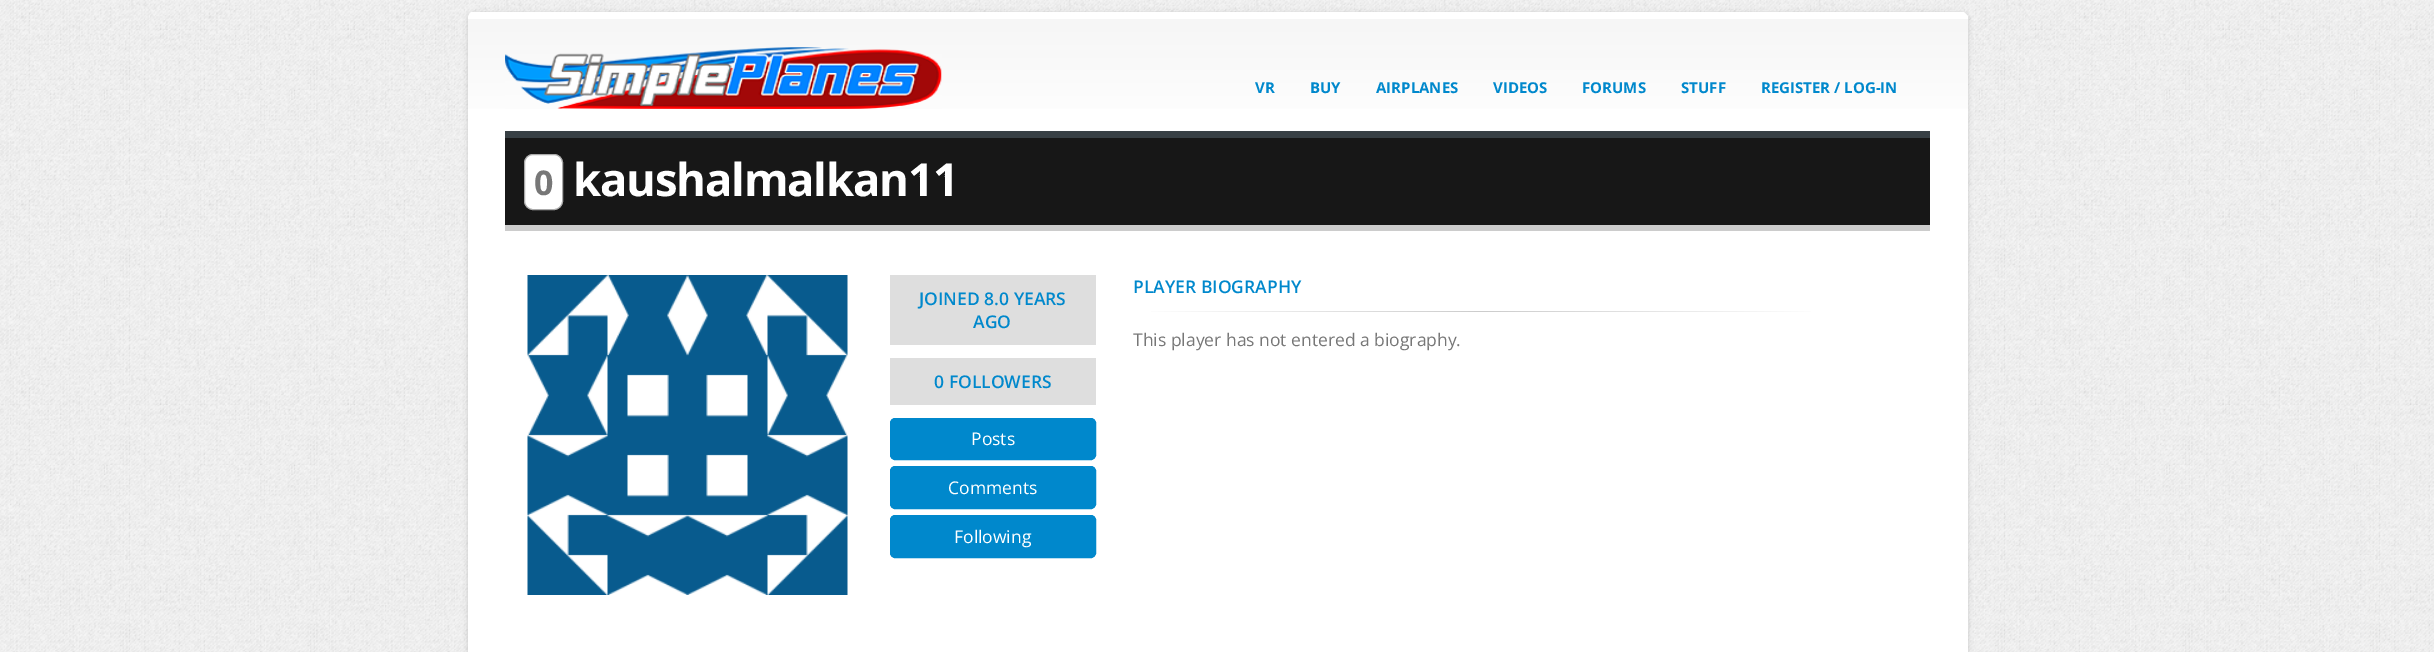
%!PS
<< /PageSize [2434 652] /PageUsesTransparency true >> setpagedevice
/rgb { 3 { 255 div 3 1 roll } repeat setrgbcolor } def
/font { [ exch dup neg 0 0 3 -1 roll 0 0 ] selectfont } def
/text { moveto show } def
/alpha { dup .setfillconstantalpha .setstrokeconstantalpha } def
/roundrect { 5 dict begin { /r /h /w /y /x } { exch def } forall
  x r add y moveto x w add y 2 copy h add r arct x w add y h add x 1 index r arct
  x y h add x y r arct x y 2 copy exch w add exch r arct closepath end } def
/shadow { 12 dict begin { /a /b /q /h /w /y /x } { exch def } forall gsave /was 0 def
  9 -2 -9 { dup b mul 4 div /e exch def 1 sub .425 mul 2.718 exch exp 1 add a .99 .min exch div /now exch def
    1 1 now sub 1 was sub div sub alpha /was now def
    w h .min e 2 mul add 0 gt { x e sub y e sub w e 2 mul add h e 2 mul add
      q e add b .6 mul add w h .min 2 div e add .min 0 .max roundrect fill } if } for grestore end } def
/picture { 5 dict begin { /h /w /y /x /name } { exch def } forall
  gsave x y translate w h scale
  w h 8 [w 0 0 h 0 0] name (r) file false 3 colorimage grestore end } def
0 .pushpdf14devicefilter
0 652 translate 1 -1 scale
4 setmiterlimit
255 255 255 rgb
0 0 2434 652 rectfill
(img_01.rgb) 0 0 2434 652 picture
0 0 0 rgb
468 13 1500 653 6 2.5 0.15 shadow
255 255 255 rgb
468 13 1500 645 6 roundrect fill
1968 16 moveto 0 3 rlineto -1500 0 rlineto 0 -3 1 -5 3 -7 rcurveto 1493 0 rlineto 1 1 3 3 4 4 rcurveto closepath fill
gsave 468 19 moveto 1500 0 rlineto 0 90 rlineto -1500 0 rlineto closepath clip newpath
<< /ShadingType 2 /ColorSpace /DeviceRGB /Coords [1218 19 1218 144] /Extend [true true] /Function << /FunctionType 2 /Domain [0 1] /C0 [0.965 0.965 0.965] /C1 [1 1 1] /N 1 >> >> shfill grestore
(img_02.rgb) 505 47 437 62 picture
23 23 23 rgb
505 138 1425 87 rectfill
56 64 69 rgb
505 131 1425 7 rectfill
204 204 204 rgb
505 225 1425 6 rectfill
255 255 255 rgb
524.5 154.5 38 55 8.5 roundrect gsave fill grestore
170 170 170 rgb
stroke
(img_03.rgb) 527 275 321 320 picture
222 222 222 rgb
890 275 206 70 rectfill
890 358 206 47 rectfill
0 136 204 rgb
890.5 418.5 205 41 4.5 roundrect gsave fill grestore
stroke
890.5 466.5 205 42 4.5 roundrect gsave fill grestore
stroke
890.5 515.5 205 42 4.5 roundrect gsave fill grestore
stroke
gsave 1151 311 moveto 660 0 rlineto 0 1 rlineto -660 0 rlineto closepath clip newpath
<< /ShadingType 2 /ColorSpace /DeviceRGB /Coords [1134 312 1828 312] /Extend [true true] /Function << /FunctionType 3 /Domain [0 1] /Functions [<< /FunctionType 2 /Domain [0 1] /C0 [1 1 1] /C1 [0.8 0.8 0.8] /N 1 >> << /FunctionType 2 /Domain [0 1] /C0 [0.8 0.8 0.8] /C1 [1 1 1] /N 1 >>] /Bounds [0.5] /Encode [0 1 0 1] >> >> shfill grestore
/OpenSans-Bold 15 font
(VR) 1255 93 text
(BUY) 1310 93 text
(AIRPLANES) 1376 93 text
(VIDEOS) 1493 93 text
(FORUMS) 1582 93 text
(STUFF) 1681 93 text
(REGISTER / LOG-IN) 1761 93 text
/OpenSans-Bold 34 font
119 119 119 rgb
534 195 moveto -1.25 0 (0) ashow
/OpenSans-Bold 45.5 font
255 255 255 rgb
573 196 moveto -1.25 0 (kaushalmalkan11) ashow
/OpenSans-SemiBold 17.5 font
0 136 204 rgb
(JOINED 8.0 YEARS) 919 305 text
(AGO) 973 328 text
(0 FOLLOWERS) 934 388 text
/OpenSans-Regular 17.5 font
255 255 255 rgb
(Posts) 971 445 text
(Comments) 948 494 text
(Following) 954 543 text
/OpenSans-SemiBold 17.5 font
0 136 204 rgb
(PLAYER BIOGRAPHY) 1133 293 text
/OpenSans-Regular 17.5 font
119 119 119 rgb
(This player has not entered a biography.) 1133 346 text
.poppdf14devicefilter showpage
